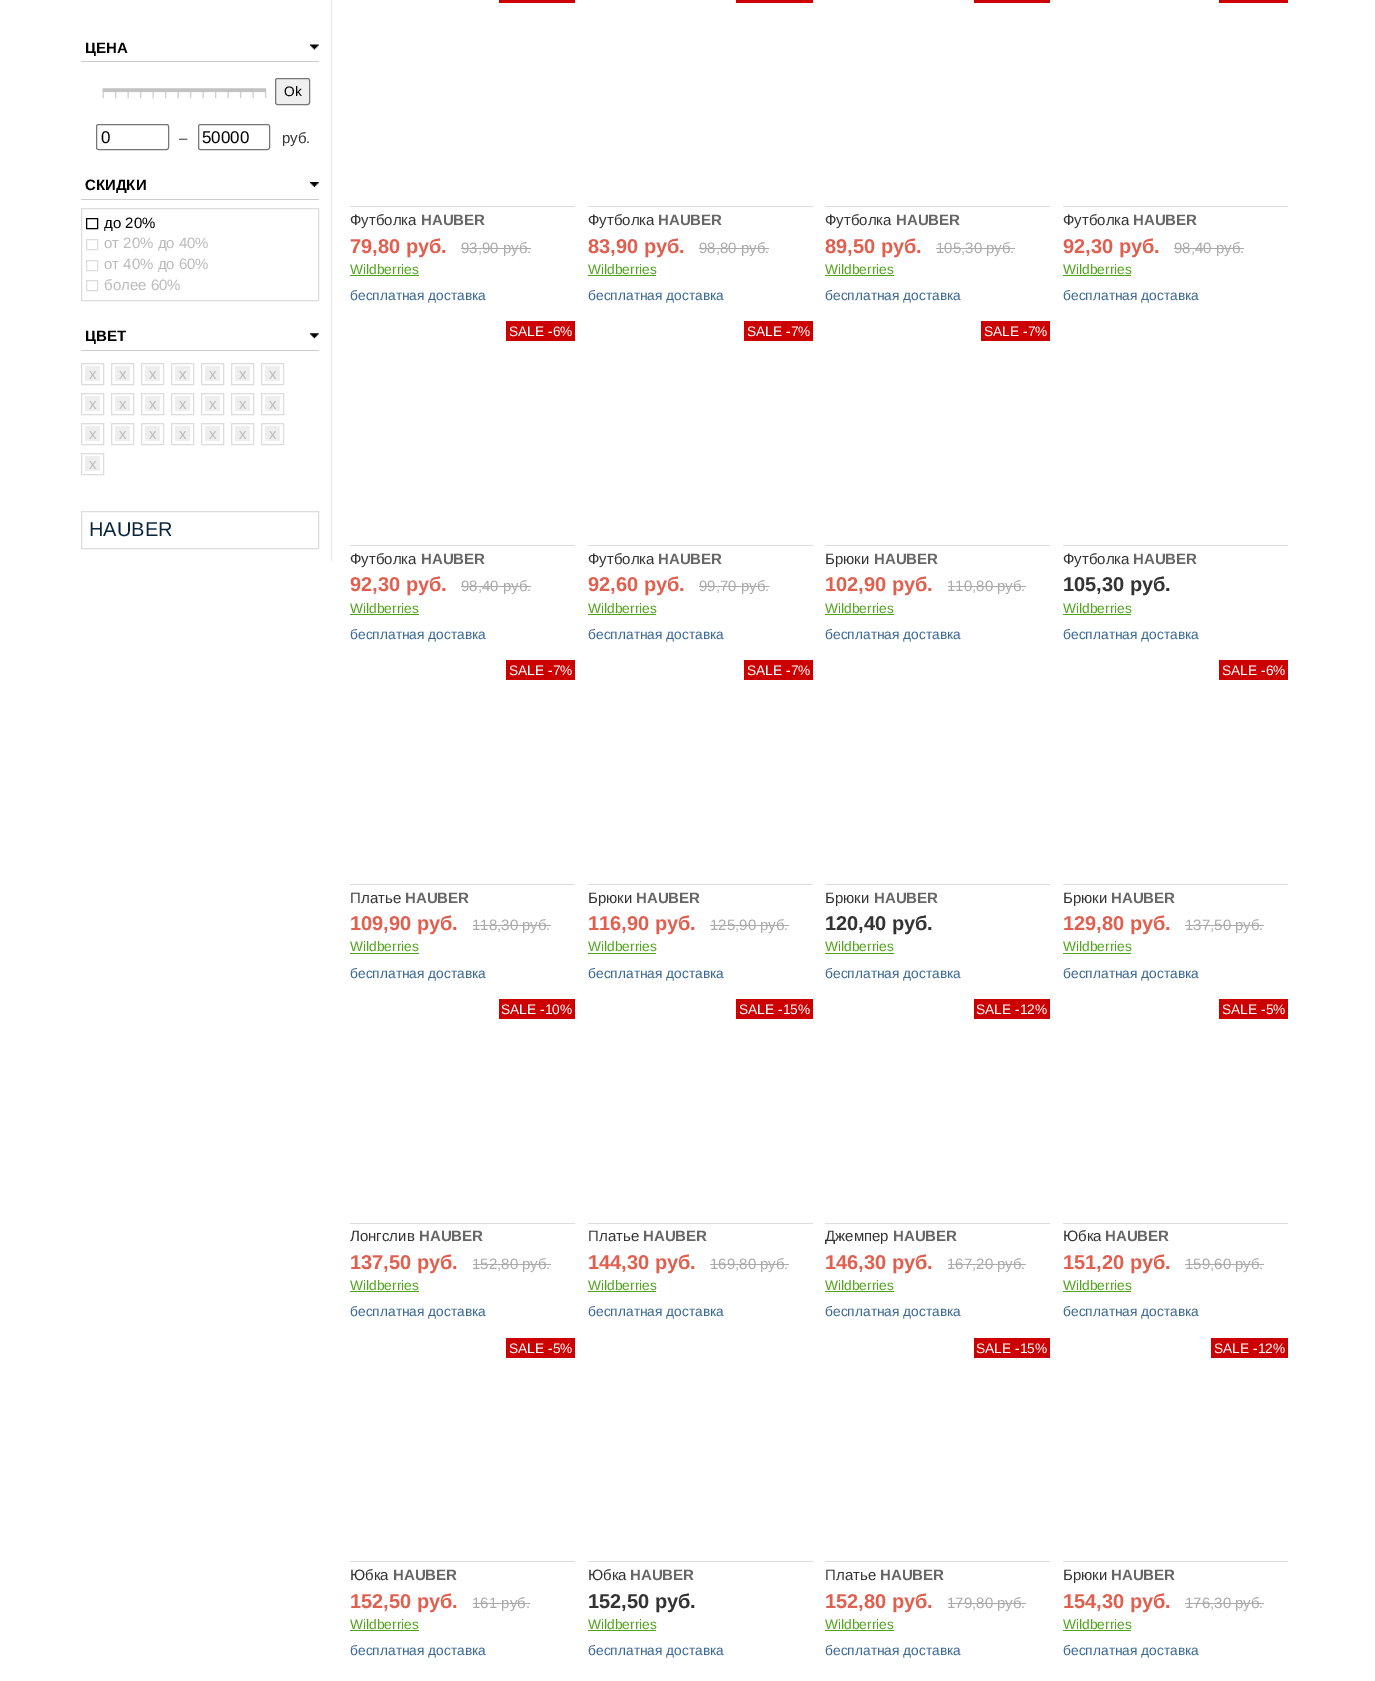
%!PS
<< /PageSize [1375 1681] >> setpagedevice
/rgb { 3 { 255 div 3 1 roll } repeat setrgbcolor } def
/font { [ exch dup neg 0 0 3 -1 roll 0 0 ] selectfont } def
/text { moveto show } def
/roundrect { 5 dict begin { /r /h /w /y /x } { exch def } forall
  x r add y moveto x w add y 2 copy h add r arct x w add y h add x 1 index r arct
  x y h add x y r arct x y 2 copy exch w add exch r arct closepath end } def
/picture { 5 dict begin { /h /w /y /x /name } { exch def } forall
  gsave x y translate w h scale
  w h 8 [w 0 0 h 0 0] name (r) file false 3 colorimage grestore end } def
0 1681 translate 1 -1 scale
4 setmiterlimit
255 255 255 rgb
0 0 1375 1681 rectfill
232 232 232 rgb
331 0 1 561 rectfill
204 204 204 rgb
81 61 238 1 rectfill
(img_01.rgb) 310 44 9 6 picture
(img_02.rgb) 102 88 165 11 picture
239 239 239 rgb
275.5 78.5 34 26 2 roundrect gsave fill grestore
118 118 118 rgb
stroke
96.5 124.5 72 25 2 roundrect stroke
198.5 124.5 71 25 2 roundrect stroke
204 204 204 rgb
81 199 238 1 rectfill
(img_03.rgb) 310 182 9 5 picture
221 221 221 rgb
81.5 208.5 237 92 rectstroke
0 0 0 rgb
86.5 218.5 11 10 rectstroke
221 221 221 rgb
86.5 239.5 11 10 rectstroke
86.5 260.5 11 10 rectstroke
86.5 280.5 11 10 rectstroke
204 204 204 rgb
81 350 238 1 rectfill
(img_04.rgb) 310 333 9 6 picture
221 221 221 rgb
81.5 363.5 22 21 rectstroke
238 238 238 rgb
85 366 15 15 rectfill
221 221 221 rgb
111.5 363.5 22 21 rectstroke
238 238 238 rgb
115 366 15 15 rectfill
221 221 221 rgb
141.5 363.5 22 21 rectstroke
238 238 238 rgb
145 366 15 15 rectfill
221 221 221 rgb
171.5 363.5 22 21 rectstroke
238 238 238 rgb
175 366 15 15 rectfill
221 221 221 rgb
201.5 363.5 22 21 rectstroke
238 238 238 rgb
205 366 15 15 rectfill
221 221 221 rgb
231.5 363.5 22 21 rectstroke
238 238 238 rgb
235 366 15 15 rectfill
221 221 221 rgb
261.5 363.5 22 21 rectstroke
238 238 238 rgb
265 366 15 15 rectfill
221 221 221 rgb
81.5 393.5 22 21 rectstroke
238 238 238 rgb
85 396 15 15 rectfill
221 221 221 rgb
111.5 393.5 22 21 rectstroke
238 238 238 rgb
115 396 15 15 rectfill
221 221 221 rgb
141.5 393.5 22 21 rectstroke
238 238 238 rgb
145 396 15 15 rectfill
221 221 221 rgb
171.5 393.5 22 21 rectstroke
238 238 238 rgb
175 396 15 15 rectfill
221 221 221 rgb
201.5 393.5 22 21 rectstroke
238 238 238 rgb
205 396 15 15 rectfill
221 221 221 rgb
231.5 393.5 22 21 rectstroke
238 238 238 rgb
235 396 15 15 rectfill
221 221 221 rgb
261.5 393.5 22 21 rectstroke
238 238 238 rgb
265 396 15 15 rectfill
221 221 221 rgb
81.5 423.5 22 21 rectstroke
238 238 238 rgb
85 426 15 15 rectfill
221 221 221 rgb
111.5 423.5 22 21 rectstroke
238 238 238 rgb
115 426 15 15 rectfill
221 221 221 rgb
141.5 423.5 22 21 rectstroke
238 238 238 rgb
145 426 15 15 rectfill
221 221 221 rgb
171.5 423.5 22 21 rectstroke
238 238 238 rgb
175 426 15 15 rectfill
221 221 221 rgb
201.5 423.5 22 21 rectstroke
238 238 238 rgb
205 426 15 15 rectfill
221 221 221 rgb
231.5 423.5 22 21 rectstroke
238 238 238 rgb
235 426 15 15 rectfill
221 221 221 rgb
261.5 423.5 22 21 rectstroke
238 238 238 rgb
265 426 15 15 rectfill
221 221 221 rgb
81.5 453.5 22 21 rectstroke
238 238 238 rgb
85 456 15 15 rectfill
221 221 221 rgb
81.5 511.5 237 37 rectstroke
204 0 0 rgb
499 0 76 3 rectfill
221 221 221 rgb
350 206 225 1 rectfill
170 170 170 rgb
461 248 70 1 rectfill
79 163 25 rgb
350 275 69 1 rectfill
204 0 0 rgb
736 0 77 3 rectfill
221 221 221 rgb
588 206 225 1 rectfill
170 170 170 rgb
699 248 70 1 rectfill
79 163 25 rgb
588 275 68 1 rectfill
204 0 0 rgb
974 0 76 3 rectfill
221 221 221 rgb
825 206 225 1 rectfill
170 170 170 rgb
936 248 79 1 rectfill
79 163 25 rgb
825 275 69 1 rectfill
204 0 0 rgb
1219 0 69 3 rectfill
221 221 221 rgb
1063 206 225 1 rectfill
170 170 170 rgb
1174 248 70 1 rectfill
79 163 25 rgb
1063 275 68 1 rectfill
204 0 0 rgb
506 321 69 20 rectfill
221 221 221 rgb
350 545 225 1 rectfill
170 170 170 rgb
461 586 70 1 rectfill
79 163 25 rgb
350 614 69 1 rectfill
204 0 0 rgb
744 321 69 20 rectfill
221 221 221 rgb
588 545 225 1 rectfill
170 170 170 rgb
699 586 70 1 rectfill
79 163 25 rgb
588 614 68 1 rectfill
204 0 0 rgb
981 321 69 20 rectfill
221 221 221 rgb
825 545 225 1 rectfill
170 170 170 rgb
948 586 78 1 rectfill
79 163 25 rgb
825 614 69 1 rectfill
221 221 221 rgb
1063 545 225 1 rectfill
79 163 25 rgb
1063 614 68 1 rectfill
204 0 0 rgb
506 660 69 20 rectfill
221 221 221 rgb
350 884 225 1 rectfill
170 170 170 rgb
473 925 78 1 rectfill
79 163 25 rgb
350 953 69 1 rectfill
204 0 0 rgb
744 660 69 20 rectfill
221 221 221 rgb
588 884 225 1 rectfill
170 170 170 rgb
710 925 79 1 rectfill
79 163 25 rgb
588 953 68 1 rectfill
221 221 221 rgb
825 884 225 1 rectfill
79 163 25 rgb
825 953 69 1 rectfill
204 0 0 rgb
1219 660 69 20 rectfill
221 221 221 rgb
1063 884 225 1 rectfill
170 170 170 rgb
1185 925 79 1 rectfill
79 163 25 rgb
1063 953 68 1 rectfill
204 0 0 rgb
499 999 76 20 rectfill
221 221 221 rgb
350 1223 225 1 rectfill
170 170 170 rgb
473 1264 78 1 rectfill
79 163 25 rgb
350 1291 69 1 rectfill
204 0 0 rgb
736 999 77 20 rectfill
221 221 221 rgb
588 1223 225 1 rectfill
170 170 170 rgb
710 1264 79 1 rectfill
79 163 25 rgb
588 1291 68 1 rectfill
204 0 0 rgb
974 999 76 20 rectfill
221 221 221 rgb
825 1223 225 1 rectfill
170 170 170 rgb
948 1264 78 1 rectfill
79 163 25 rgb
825 1291 69 1 rectfill
204 0 0 rgb
1219 999 69 20 rectfill
221 221 221 rgb
1063 1223 225 1 rectfill
170 170 170 rgb
1185 1264 79 1 rectfill
79 163 25 rgb
1063 1291 68 1 rectfill
204 0 0 rgb
506 1338 69 20 rectfill
221 221 221 rgb
350 1561 225 1 rectfill
170 170 170 rgb
473 1603 57 1 rectfill
79 163 25 rgb
350 1630 69 1 rectfill
221 221 221 rgb
588 1561 225 1 rectfill
79 163 25 rgb
588 1630 68 1 rectfill
204 0 0 rgb
974 1338 76 20 rectfill
221 221 221 rgb
825 1561 225 1 rectfill
170 170 170 rgb
948 1603 78 1 rectfill
79 163 25 rgb
825 1630 69 1 rectfill
204 0 0 rgb
1211 1338 77 20 rectfill
221 221 221 rgb
1063 1561 225 1 rectfill
170 170 170 rgb
1185 1603 79 1 rectfill
79 163 25 rgb
1063 1630 68 1 rectfill
/LiberationSans-Bold 15 font
0 0 0 rgb
(ЦЕНА) 85 53 text
/LiberationSans-Regular 13.75 font
(Ok) 284 96 text
/LiberationSans-Regular 17 font
(0) 101 143 text
/LiberationSans-Regular 15 font
51 51 51 rgb
(–) 179 143 text
/LiberationSans-Regular 17 font
0 0 0 rgb
(50000) 202 143 text
/LiberationSans-Regular 15 font
51 51 51 rgb
(руб.) 282 143 text
/LiberationSans-Bold 15 font
0 0 0 rgb
(СКИДКИ) 85 190 text
/LiberationSans-Regular 15 font
(до 20%) 104 228 text
187 187 187 rgb
(от 20% до 40%) 104 248 text
(от 40% до 60%) 104 269 text
(более 60%) 104 290 text
/LiberationSans-Bold 15 font
0 0 0 rgb
(ЦВЕТ) 85 341 text
/LiberationSans-Regular 15 font
187 187 187 rgb
(x) 89 379 text
(x) 119 379 text
(x) 149 379 text
(x) 179 379 text
(x) 209 379 text
(x) 239 379 text
(x) 269 379 text
(x) 89 409 text
(x) 119 409 text
(x) 149 409 text
(x) 179 409 text
(x) 209 409 text
(x) 239 409 text
(x) 269 409 text
(x) 89 439 text
(x) 119 439 text
(x) 149 439 text
(x) 179 439 text
(x) 209 439 text
(x) 239 439 text
(x) 269 439 text
(x) 89 469 text
/LiberationSans-Regular 20 font
10 38 60 rgb
(HAUBER) 89 536 text
/LiberationSans-Regular 15 font
51 51 51 rgb
(Футболка) 350 225 text
/LiberationSans-Bold 15 font
102 102 102 rgb
(HAUBER) 421 225 text
/LiberationSans-Bold 20 font
225 95 79 rgb
(79,80 руб.) 350 253 text
/LiberationSans-Regular 15 font
170 170 170 rgb
(93,90 руб.) 461 253 text
/LiberationSans-Regular 13.75 font
79 163 25 rgb
(Wildberries) 350 274 text
58 104 148 rgb
(бесплатная доставка) 350 300 text
/LiberationSans-Regular 15 font
51 51 51 rgb
(Футболка) 588 225 text
/LiberationSans-Bold 15 font
102 102 102 rgb
(HAUBER) 658 225 text
/LiberationSans-Bold 20 font
225 95 79 rgb
(83,90 руб.) 588 253 text
/LiberationSans-Regular 15 font
170 170 170 rgb
(98,80 руб.) 699 253 text
/LiberationSans-Regular 13.75 font
79 163 25 rgb
(Wildberries) 588 274 text
58 104 148 rgb
(бесплатная доставка) 588 300 text
/LiberationSans-Regular 15 font
51 51 51 rgb
(Футболка) 825 225 text
/LiberationSans-Bold 15 font
102 102 102 rgb
(HAUBER) 896 225 text
/LiberationSans-Bold 20 font
225 95 79 rgb
(89,50 руб.) 825 253 text
/LiberationSans-Regular 15 font
170 170 170 rgb
(105,30 руб.) 936 253 text
/LiberationSans-Regular 13.75 font
79 163 25 rgb
(Wildberries) 825 274 text
58 104 148 rgb
(бесплатная доставка) 825 300 text
/LiberationSans-Regular 15 font
51 51 51 rgb
(Футболка) 1063 225 text
/LiberationSans-Bold 15 font
102 102 102 rgb
(HAUBER) 1133 225 text
/LiberationSans-Bold 20 font
225 95 79 rgb
(92,30 руб.) 1063 253 text
/LiberationSans-Regular 15 font
170 170 170 rgb
(98,40 руб.) 1174 253 text
/LiberationSans-Regular 13.75 font
79 163 25 rgb
(Wildberries) 1063 274 text
58 104 148 rgb
(бесплатная доставка) 1063 300 text
255 255 255 rgb
(SALE -6%) 509 336 text
/LiberationSans-Regular 15 font
51 51 51 rgb
(Футболка) 350 564 text
/LiberationSans-Bold 15 font
102 102 102 rgb
(HAUBER) 421 564 text
/LiberationSans-Bold 20 font
225 95 79 rgb
(92,30 руб.) 350 591 text
/LiberationSans-Regular 15 font
170 170 170 rgb
(98,40 руб.) 461 591 text
/LiberationSans-Regular 13.75 font
79 163 25 rgb
(Wildberries) 350 613 text
58 104 148 rgb
(бесплатная доставка) 350 639 text
255 255 255 rgb
(SALE -7%) 747 336 text
/LiberationSans-Regular 15 font
51 51 51 rgb
(Футболка) 588 564 text
/LiberationSans-Bold 15 font
102 102 102 rgb
(HAUBER) 658 564 text
/LiberationSans-Bold 20 font
225 95 79 rgb
(92,60 руб.) 588 591 text
/LiberationSans-Regular 15 font
170 170 170 rgb
(99,70 руб.) 699 591 text
/LiberationSans-Regular 13.75 font
79 163 25 rgb
(Wildberries) 588 613 text
58 104 148 rgb
(бесплатная доставка) 588 639 text
255 255 255 rgb
(SALE -7%) 984 336 text
/LiberationSans-Regular 15 font
51 51 51 rgb
(Брюки) 825 564 text
/LiberationSans-Bold 15 font
102 102 102 rgb
(HAUBER) 874 564 text
/LiberationSans-Bold 20 font
225 95 79 rgb
(102,90 руб.) 825 591 text
/LiberationSans-Regular 15 font
170 170 170 rgb
(110,80 руб.) 947 591 text
/LiberationSans-Regular 13.75 font
79 163 25 rgb
(Wildberries) 825 613 text
58 104 148 rgb
(бесплатная доставка) 825 639 text
/LiberationSans-Regular 15 font
51 51 51 rgb
(Футболка) 1063 564 text
/LiberationSans-Bold 15 font
102 102 102 rgb
(HAUBER) 1133 564 text
/LiberationSans-Bold 20 font
51 51 51 rgb
(105,30 руб.) 1063 591 text
/LiberationSans-Regular 13.75 font
79 163 25 rgb
(Wildberries) 1063 613 text
58 104 148 rgb
(бесплатная доставка) 1063 639 text
255 255 255 rgb
(SALE -7%) 509 675 text
/LiberationSans-Regular 15 font
51 51 51 rgb
(Платье) 350 903 text
/LiberationSans-Bold 15 font
102 102 102 rgb
(HAUBER) 405 903 text
/LiberationSans-Bold 20 font
225 95 79 rgb
(109,90 руб.) 350 930 text
/LiberationSans-Regular 15 font
170 170 170 rgb
(118,30 руб.) 472 930 text
/LiberationSans-Regular 13.75 font
79 163 25 rgb
(Wildberries) 350 951 text
58 104 148 rgb
(бесплатная доставка) 350 978 text
255 255 255 rgb
(SALE -7%) 747 675 text
/LiberationSans-Regular 15 font
51 51 51 rgb
(Брюки) 588 903 text
/LiberationSans-Bold 15 font
102 102 102 rgb
(HAUBER) 636 903 text
/LiberationSans-Bold 20 font
225 95 79 rgb
(116,90 руб.) 588 930 text
/LiberationSans-Regular 15 font
170 170 170 rgb
(125,90 руб.) 710 930 text
/LiberationSans-Regular 13.75 font
79 163 25 rgb
(Wildberries) 588 951 text
58 104 148 rgb
(бесплатная доставка) 588 978 text
/LiberationSans-Regular 15 font
51 51 51 rgb
(Брюки) 825 903 text
/LiberationSans-Bold 15 font
102 102 102 rgb
(HAUBER) 874 903 text
/LiberationSans-Bold 20 font
51 51 51 rgb
(120,40 руб.) 825 930 text
/LiberationSans-Regular 13.75 font
79 163 25 rgb
(Wildberries) 825 951 text
58 104 148 rgb
(бесплатная доставка) 825 978 text
255 255 255 rgb
(SALE -6%) 1222 675 text
/LiberationSans-Regular 15 font
51 51 51 rgb
(Брюки) 1063 903 text
/LiberationSans-Bold 15 font
102 102 102 rgb
(HAUBER) 1111 903 text
/LiberationSans-Bold 20 font
225 95 79 rgb
(129,80 руб.) 1063 930 text
/LiberationSans-Regular 15 font
170 170 170 rgb
(137,50 руб.) 1185 930 text
/LiberationSans-Regular 13.75 font
79 163 25 rgb
(Wildberries) 1063 951 text
58 104 148 rgb
(бесплатная доставка) 1063 978 text
255 255 255 rgb
(SALE -10%) 501 1014 text
/LiberationSans-Regular 15 font
51 51 51 rgb
(Лонгслив) 350 1241 text
/LiberationSans-Bold 15 font
102 102 102 rgb
(HAUBER) 419 1241 text
/LiberationSans-Bold 20 font
225 95 79 rgb
(137,50 руб.) 350 1269 text
/LiberationSans-Regular 15 font
170 170 170 rgb
(152,80 руб.) 472 1269 text
/LiberationSans-Regular 13.75 font
79 163 25 rgb
(Wildberries) 350 1290 text
58 104 148 rgb
(бесплатная доставка) 350 1316 text
255 255 255 rgb
(SALE -15%) 739 1014 text
/LiberationSans-Regular 15 font
51 51 51 rgb
(Платье) 588 1241 text
/LiberationSans-Bold 15 font
102 102 102 rgb
(HAUBER) 643 1241 text
/LiberationSans-Bold 20 font
225 95 79 rgb
(144,30 руб.) 588 1269 text
/LiberationSans-Regular 15 font
170 170 170 rgb
(169,80 руб.) 710 1269 text
/LiberationSans-Regular 13.75 font
79 163 25 rgb
(Wildberries) 588 1290 text
58 104 148 rgb
(бесплатная доставка) 588 1316 text
255 255 255 rgb
(SALE -12%) 976 1014 text
/LiberationSans-Regular 15 font
51 51 51 rgb
(Джемпер) 825 1241 text
/LiberationSans-Bold 15 font
102 102 102 rgb
(HAUBER) 893 1241 text
/LiberationSans-Bold 20 font
225 95 79 rgb
(146,30 руб.) 825 1269 text
/LiberationSans-Regular 15 font
170 170 170 rgb
(167,20 руб.) 947 1269 text
/LiberationSans-Regular 13.75 font
79 163 25 rgb
(Wildberries) 825 1290 text
58 104 148 rgb
(бесплатная доставка) 825 1316 text
255 255 255 rgb
(SALE -5%) 1222 1014 text
/LiberationSans-Regular 15 font
51 51 51 rgb
(Юбка) 1063 1241 text
/LiberationSans-Bold 15 font
102 102 102 rgb
(HAUBER) 1105 1241 text
/LiberationSans-Bold 20 font
225 95 79 rgb
(151,20 руб.) 1063 1269 text
/LiberationSans-Regular 15 font
170 170 170 rgb
(159,60 руб.) 1185 1269 text
/LiberationSans-Regular 13.75 font
79 163 25 rgb
(Wildberries) 1063 1290 text
58 104 148 rgb
(бесплатная доставка) 1063 1316 text
255 255 255 rgb
(SALE -5%) 509 1353 text
/LiberationSans-Regular 15 font
51 51 51 rgb
(Юбка) 350 1580 text
/LiberationSans-Bold 15 font
102 102 102 rgb
(HAUBER) 393 1580 text
/LiberationSans-Bold 20 font
225 95 79 rgb
(152,50 руб.) 350 1608 text
/LiberationSans-Regular 15 font
170 170 170 rgb
(161 руб.) 472 1608 text
/LiberationSans-Regular 13.75 font
79 163 25 rgb
(Wildberries) 350 1629 text
58 104 148 rgb
(бесплатная доставка) 350 1655 text
/LiberationSans-Regular 15 font
51 51 51 rgb
(Юбка) 588 1580 text
/LiberationSans-Bold 15 font
102 102 102 rgb
(HAUBER) 630 1580 text
/LiberationSans-Bold 20 font
51 51 51 rgb
(152,50 руб.) 588 1608 text
/LiberationSans-Regular 13.75 font
79 163 25 rgb
(Wildberries) 588 1629 text
58 104 148 rgb
(бесплатная доставка) 588 1655 text
255 255 255 rgb
(SALE -15%) 976 1353 text
/LiberationSans-Regular 15 font
51 51 51 rgb
(Платье) 825 1580 text
/LiberationSans-Bold 15 font
102 102 102 rgb
(HAUBER) 880 1580 text
/LiberationSans-Bold 20 font
225 95 79 rgb
(152,80 руб.) 825 1608 text
/LiberationSans-Regular 15 font
170 170 170 rgb
(179,80 руб.) 947 1608 text
/LiberationSans-Regular 13.75 font
79 163 25 rgb
(Wildberries) 825 1629 text
58 104 148 rgb
(бесплатная доставка) 825 1655 text
255 255 255 rgb
(SALE -12%) 1214 1353 text
/LiberationSans-Regular 15 font
51 51 51 rgb
(Брюки) 1063 1580 text
/LiberationSans-Bold 15 font
102 102 102 rgb
(HAUBER) 1111 1580 text
/LiberationSans-Bold 20 font
225 95 79 rgb
(154,30 руб.) 1063 1608 text
/LiberationSans-Regular 15 font
170 170 170 rgb
(176,30 руб.) 1185 1608 text
/LiberationSans-Regular 13.75 font
79 163 25 rgb
(Wildberries) 1063 1629 text
58 104 148 rgb
(бесплатная доставка) 1063 1655 text
showpage
